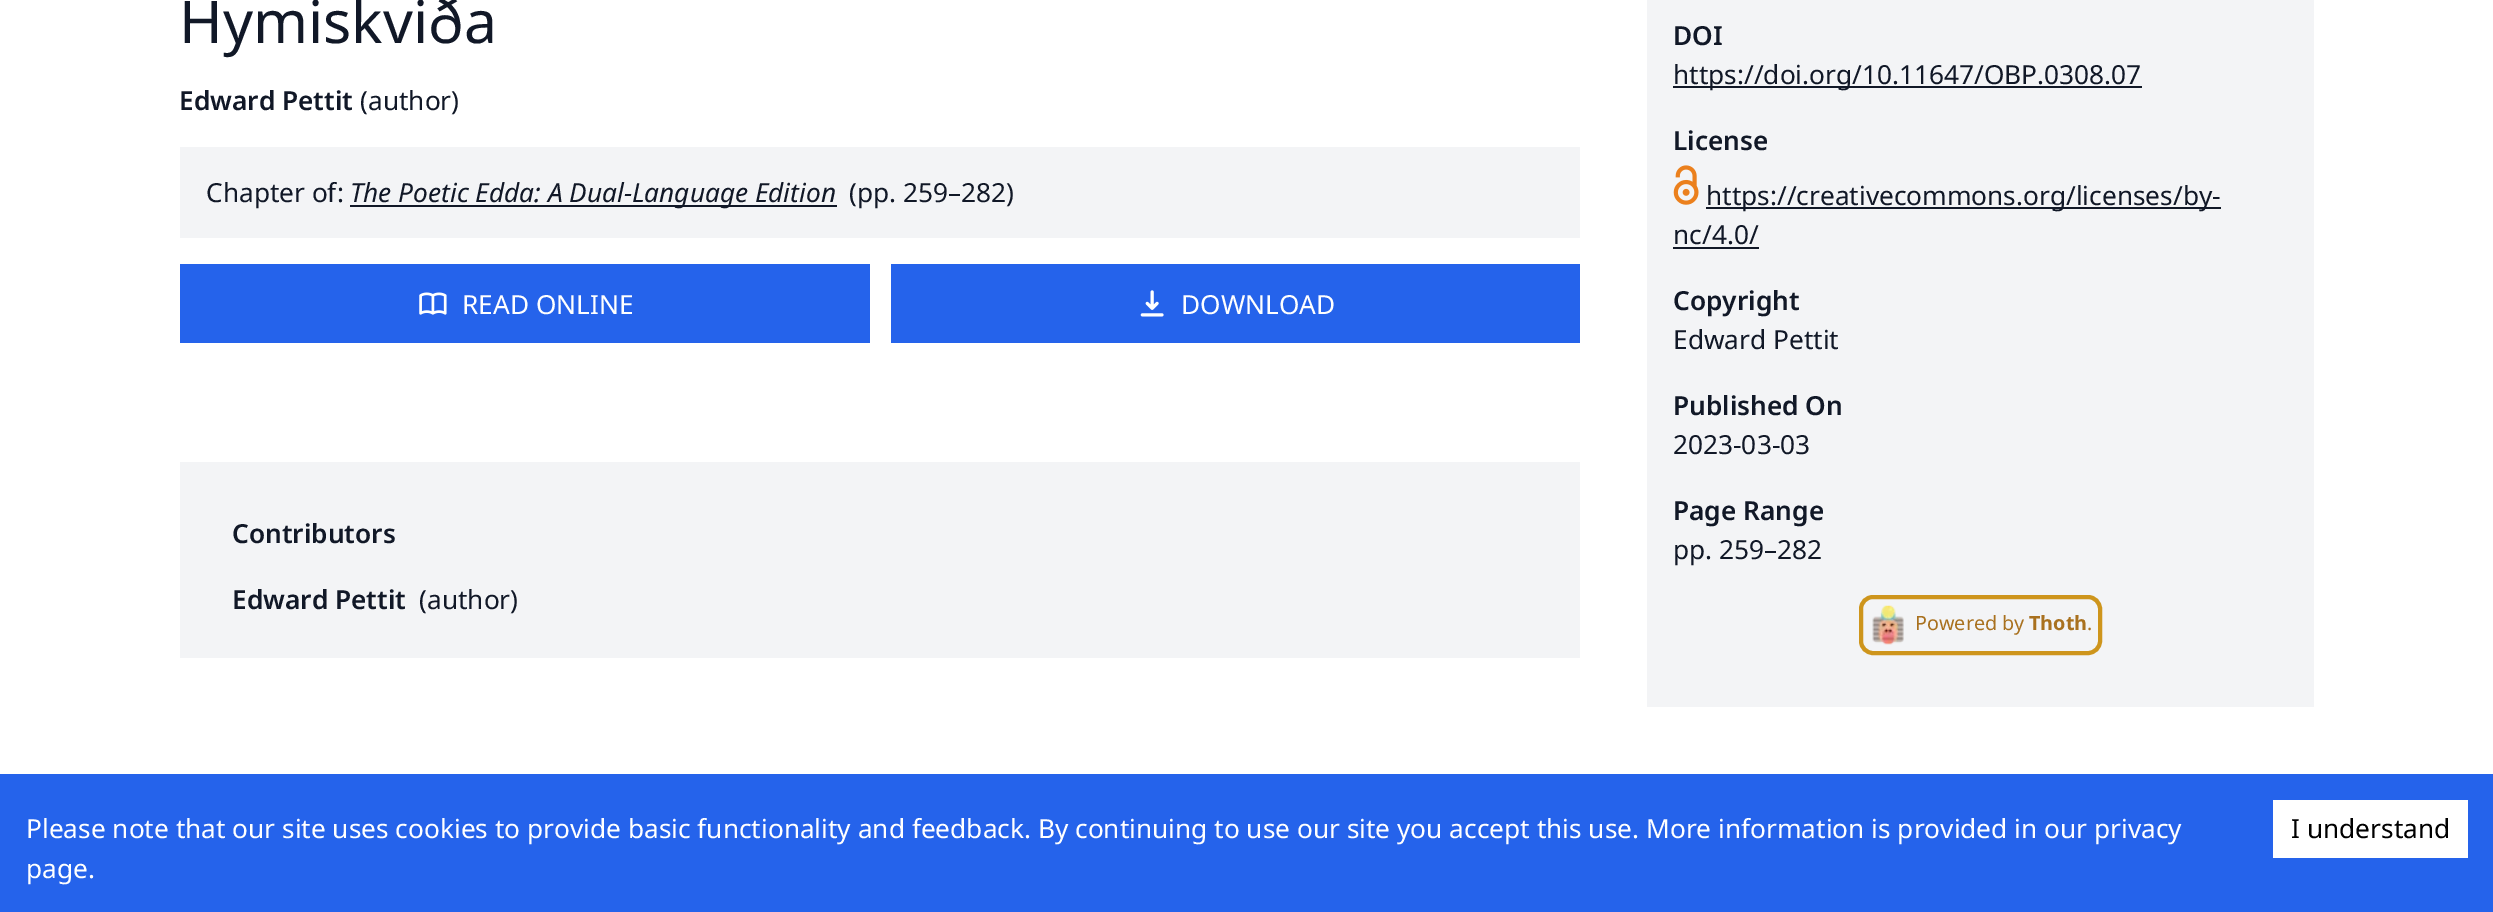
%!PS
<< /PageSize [2493 912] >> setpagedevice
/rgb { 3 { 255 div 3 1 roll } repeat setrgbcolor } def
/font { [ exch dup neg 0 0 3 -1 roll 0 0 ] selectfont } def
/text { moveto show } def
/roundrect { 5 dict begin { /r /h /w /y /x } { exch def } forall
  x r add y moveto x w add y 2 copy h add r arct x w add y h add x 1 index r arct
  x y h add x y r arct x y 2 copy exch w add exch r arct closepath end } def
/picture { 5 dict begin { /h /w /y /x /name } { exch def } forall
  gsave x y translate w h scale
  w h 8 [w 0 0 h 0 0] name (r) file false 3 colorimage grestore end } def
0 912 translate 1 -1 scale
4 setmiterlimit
255 255 255 rgb
0 0 2493 912 rectfill
243 244 246 rgb
180 147 1400 91 rectfill
17 24 39 rgb
350 205 487 2 rectfill
37 99 235 rgb
180 264 690 79 rectfill
(img_01.rgb) 419 292 28 23 picture
891 264 689 79 rectfill
(img_02.rgb) 1140 290 24 27 picture
243 244 246 rgb
180 462 1400 196 rectfill
1647 0 667 707 rectfill
17 24 39 rgb
1673 86 469 2 rectfill
(img_03.rgb) 1673 165 26 40 picture
1706 207 515 2 rectfill
1673 247 86 2 rectfill
206 149 28 rgb
4 setlinewidth
1861 597 239 56 12 roundrect stroke
(img_04.rgb) 1872 605 32 40 picture
37 99 235 rgb
0 774 2493 138 rectfill
255 255 255 rgb
2273 800 195 58 rectfill
/NotoSans-Regular 59 font
17 24 39 rgb
(Hymiskviða) 179 43 text
/NotoSans-SemiBold 26.25 font
(Edward Pettit) 179 110 text
/NotoSans-Regular 26.25 font
(\(author\)) 360 110 text
(Chapter of:) 206 202 text
/NotoSans-Italic 26.25 font
(The Poetic Edda: A Dual-Language Edition) 350 202 text
/NotoSans-Regular 26.25 font
(\(pp. 259–282\)) 849 202 text
255 255 255 rgb
(READ ONLINE) 462 314 text
(DOWNLOAD) 1181 314 text
/NotoSans-SemiBold 26.25 font
17 24 39 rgb
(Contributors) 232 543 text
(Edward Pettit) 232 609 text
/NotoSans-Regular 26.25 font
(\(author\)) 419 609 text
/NotoSans-SemiBold 26.25 font
(DOI) 1673 45 text
/NotoSans-Regular 26.25 font
(https://doi.org/10.11647/OBP.0308.07) 1673 84 text
/NotoSans-SemiBold 26.25 font
(License) 1673 150 text
/NotoSans-Regular 26.25 font
(https://creativecommons.org/licenses/by-) 1706 205 text
(nc/4.0/) 1673 244 text
/NotoSans-SemiBold 26.25 font
(Copyright) 1673 310 text
/NotoSans-Regular 26.25 font
(Edward Pettit) 1673 349 text
/NotoSans-SemiBold 26.25 font
(Published On) 1673 415 text
/NotoSans-Regular 26.25 font
(2023-03-03) 1673 454 text
/NotoSans-SemiBold 26.25 font
(Page Range) 1673 520 text
/NotoSans-Regular 26.25 font
(pp. 259–282) 1673 559 text
/NotoSans-Regular 19.75 font
169 113 31 rgb
(Powered by) 1915 630 text
/NotoSans-Bold 19.75 font
(Thoth) 2029 630 text
/NotoSans-Regular 19.75 font
(.) 2087 630 text
/NotoSans-Regular 26.25 font
255 255 255 rgb
(Please note that our site uses cookies to provide basic functionality and feedback. By continuing to use our site you accept this use. More information is provided in our privacy) 26 838 text
(page.) 26 878 text
0 0 0 rgb
(I understand) 2291 838 text
showpage
